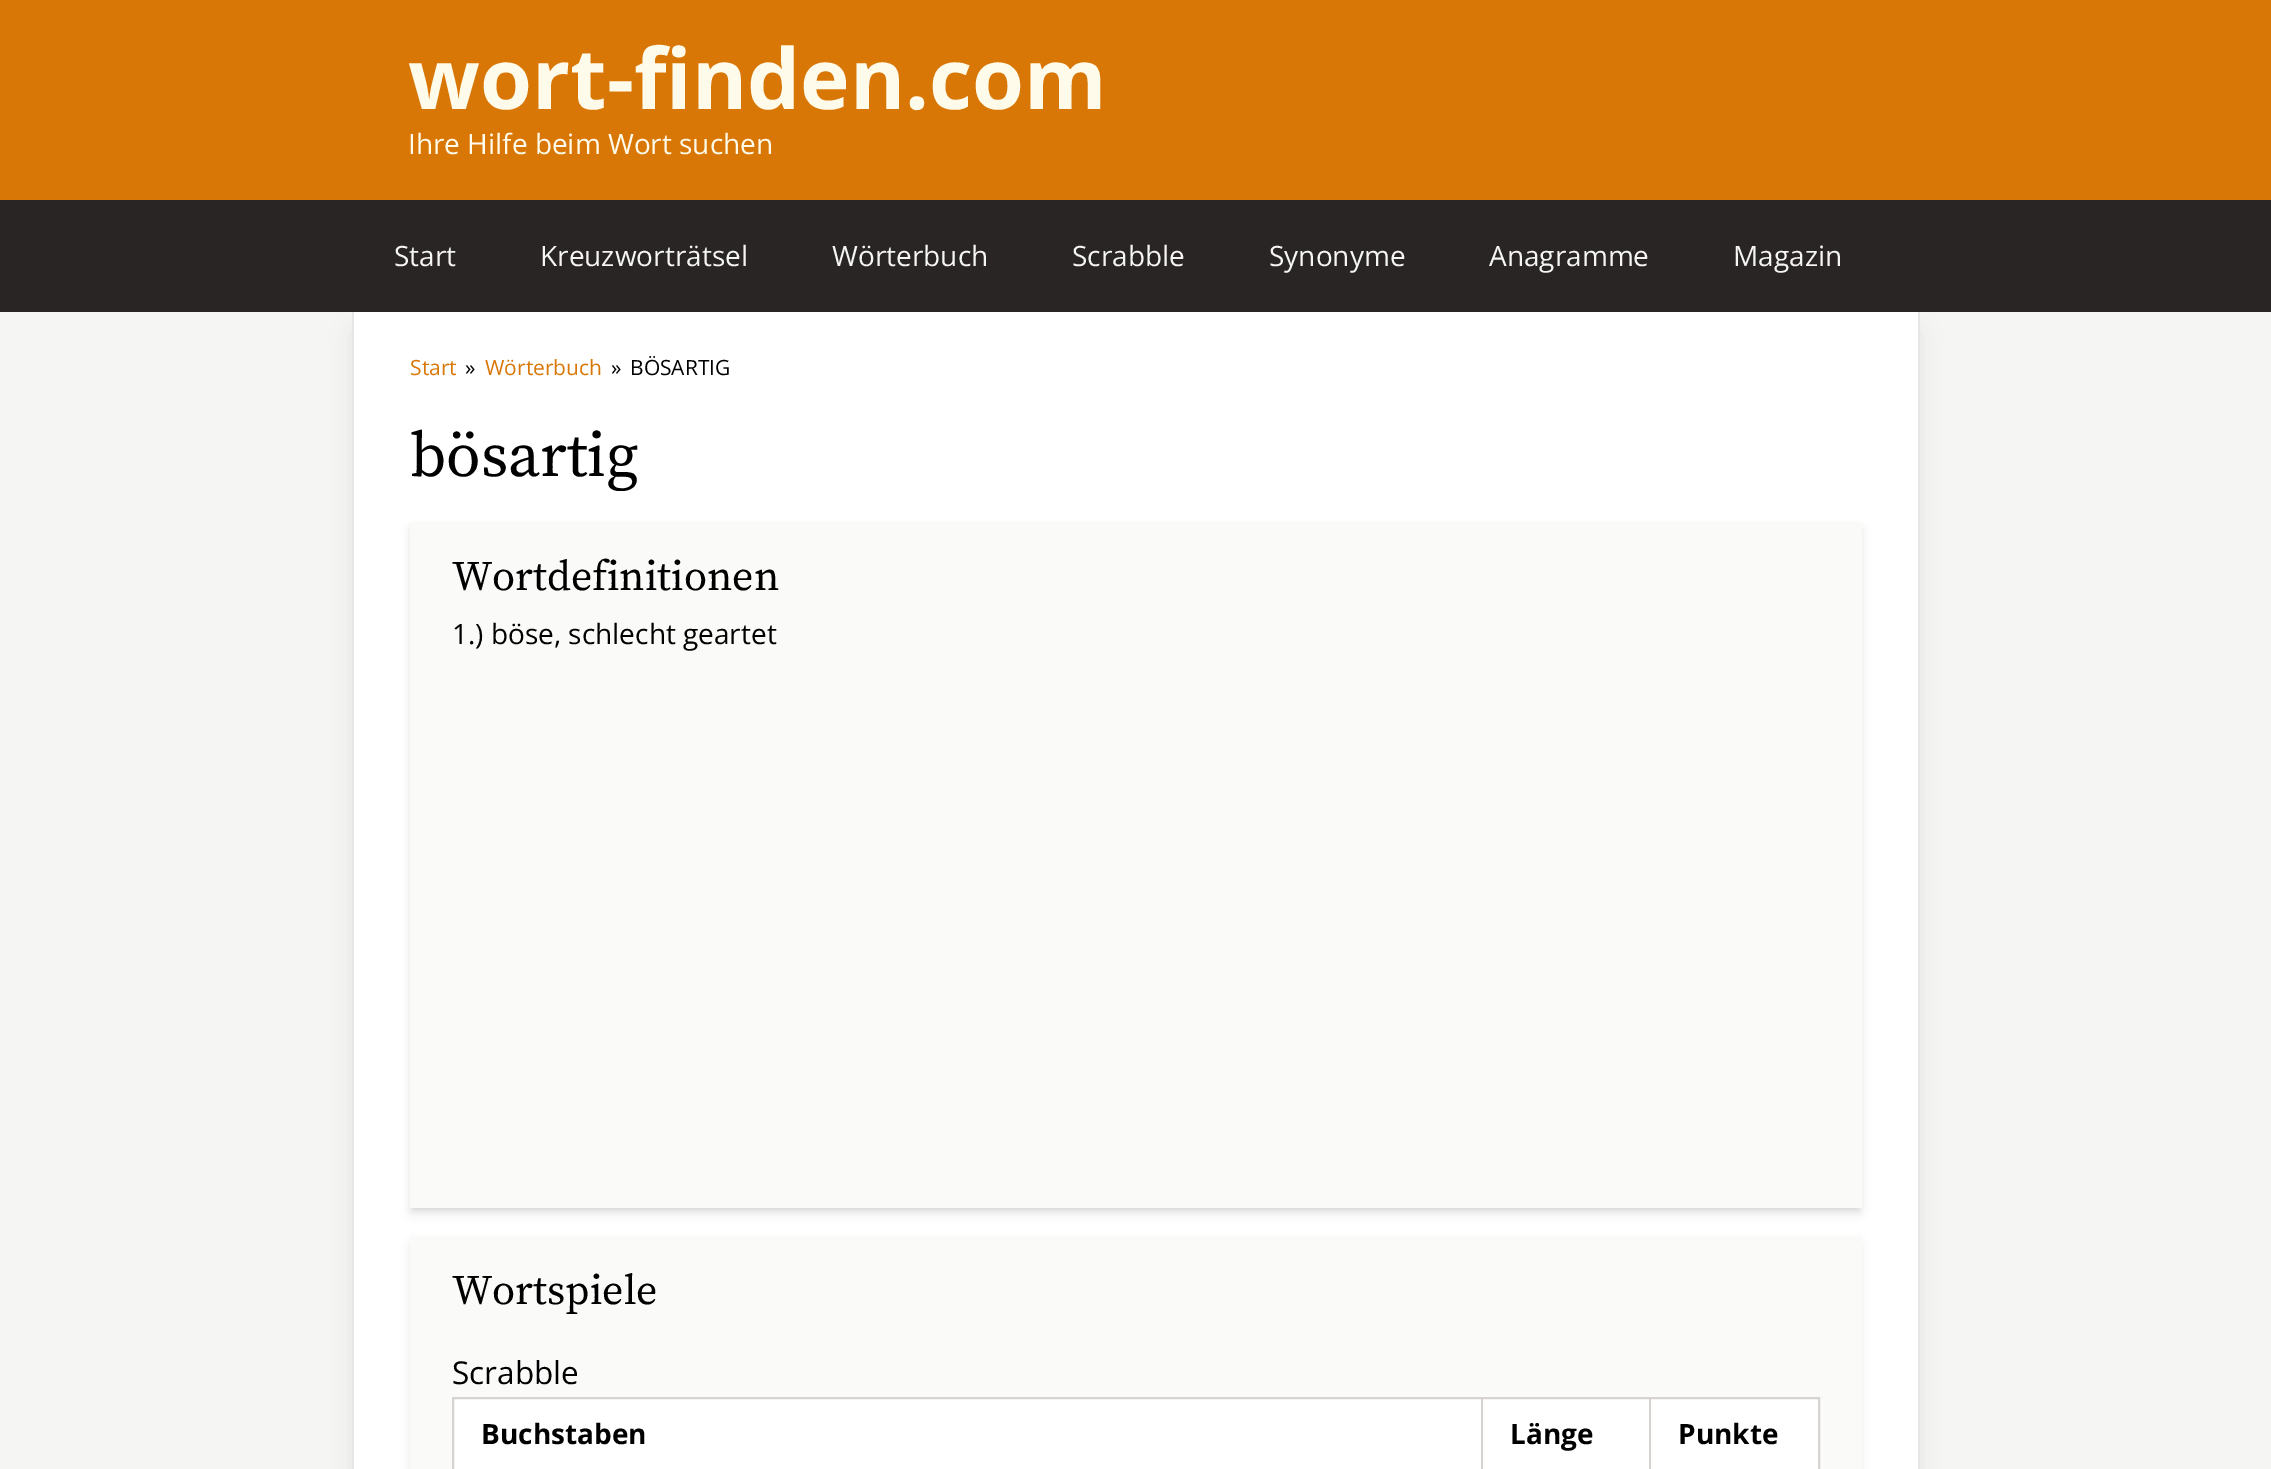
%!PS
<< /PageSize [2271 1469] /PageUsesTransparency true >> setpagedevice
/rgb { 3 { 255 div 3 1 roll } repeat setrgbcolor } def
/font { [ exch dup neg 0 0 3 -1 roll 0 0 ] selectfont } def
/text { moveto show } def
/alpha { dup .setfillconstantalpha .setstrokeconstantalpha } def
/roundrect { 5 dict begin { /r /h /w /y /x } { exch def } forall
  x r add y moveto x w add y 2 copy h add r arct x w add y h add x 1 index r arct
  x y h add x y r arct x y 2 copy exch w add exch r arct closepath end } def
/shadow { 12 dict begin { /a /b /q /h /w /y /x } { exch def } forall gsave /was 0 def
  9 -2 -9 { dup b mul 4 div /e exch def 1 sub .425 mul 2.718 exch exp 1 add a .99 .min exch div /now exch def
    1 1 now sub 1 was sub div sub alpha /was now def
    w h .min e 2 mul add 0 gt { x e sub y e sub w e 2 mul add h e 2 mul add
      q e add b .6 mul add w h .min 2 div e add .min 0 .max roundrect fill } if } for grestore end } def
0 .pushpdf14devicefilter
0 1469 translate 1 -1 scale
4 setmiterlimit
245 245 244 rgb
0 0 2271 1469 rectfill
217 119 6 rgb
0 0 2271 200 rectfill
0 0 0 rgb
357 334 1558 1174 0 13 0.1 shadow
41 37 36 rgb
0 200 2271 112 rectfill
255 255 255 rgb
354 312 1564 1157 rectfill
231 229 228 rgb
1918 312 2 1157 rectfill
352 312 2 1157 rectfill
0 0 0 rgb
413 529 1446 679 0 3.5 0.1 shadow
411 530 1449 683 0 5 0.1 shadow
250 250 249 rgb
410 522 1452 686 rectfill
0 0 0 rgb
411 1244 1449 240 0 5 0.1 shadow
250 250 249 rgb
410 1236 1452 233 rectfill
255 255 255 rgb
453 1398 moveto 1366 0 rlineto 0 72 rlineto -1366 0 rlineto closepath gsave fill grestore
214 211 209 rgb
2 setlinewidth
stroke
1481 1398 2 71 rectfill
1649 1398 2 71 rectfill
/OpenSans-Bold 84 font
255 251 235 rgb
(wort-finden.com) 408 109 text
/OpenSans-Regular 28 font
(Ihre Hilfe beim Wort suchen) 408 154 text
245 245 244 rgb
(Start) 394 266 text
(Kreuzworträtsel) 540 266 text
(Wörterbuch) 832 266 text
(Scrabble) 1072 266 text
(Synonyme) 1269 266 text
(Anagramme) 1489 266 text
(Magazin) 1733 266 text
/OpenSans-Regular 21 font
217 119 6 rgb
(Start) 410 375 text
0 0 0 rgb
(») 465 375 text
217 119 6 rgb
(Wörterbuch) 485 375 text
0 0 0 rgb
(») 611 375 text
(BÖSARTIG) 630 375 text
/SourceSerifPro-Regular 63 font
(bösartig) 410 476 text
/SourceSerifPro-Regular 42 font
(Wortdefinitionen) 452 590 text
/OpenSans-Regular 28 font
(1.\) böse, schlecht geartet) 452 644 text
/SourceSerifPro-Regular 42 font
(Wortspiele) 452 1304 text
/OpenSans-Regular 31.5 font
(Scrabble) 452 1384 text
/OpenSans-Bold 28 font
(Buchstaben) 481 1444 text
(Länge) 1510 1444 text
(Punkte) 1678 1444 text
.poppdf14devicefilter showpage
